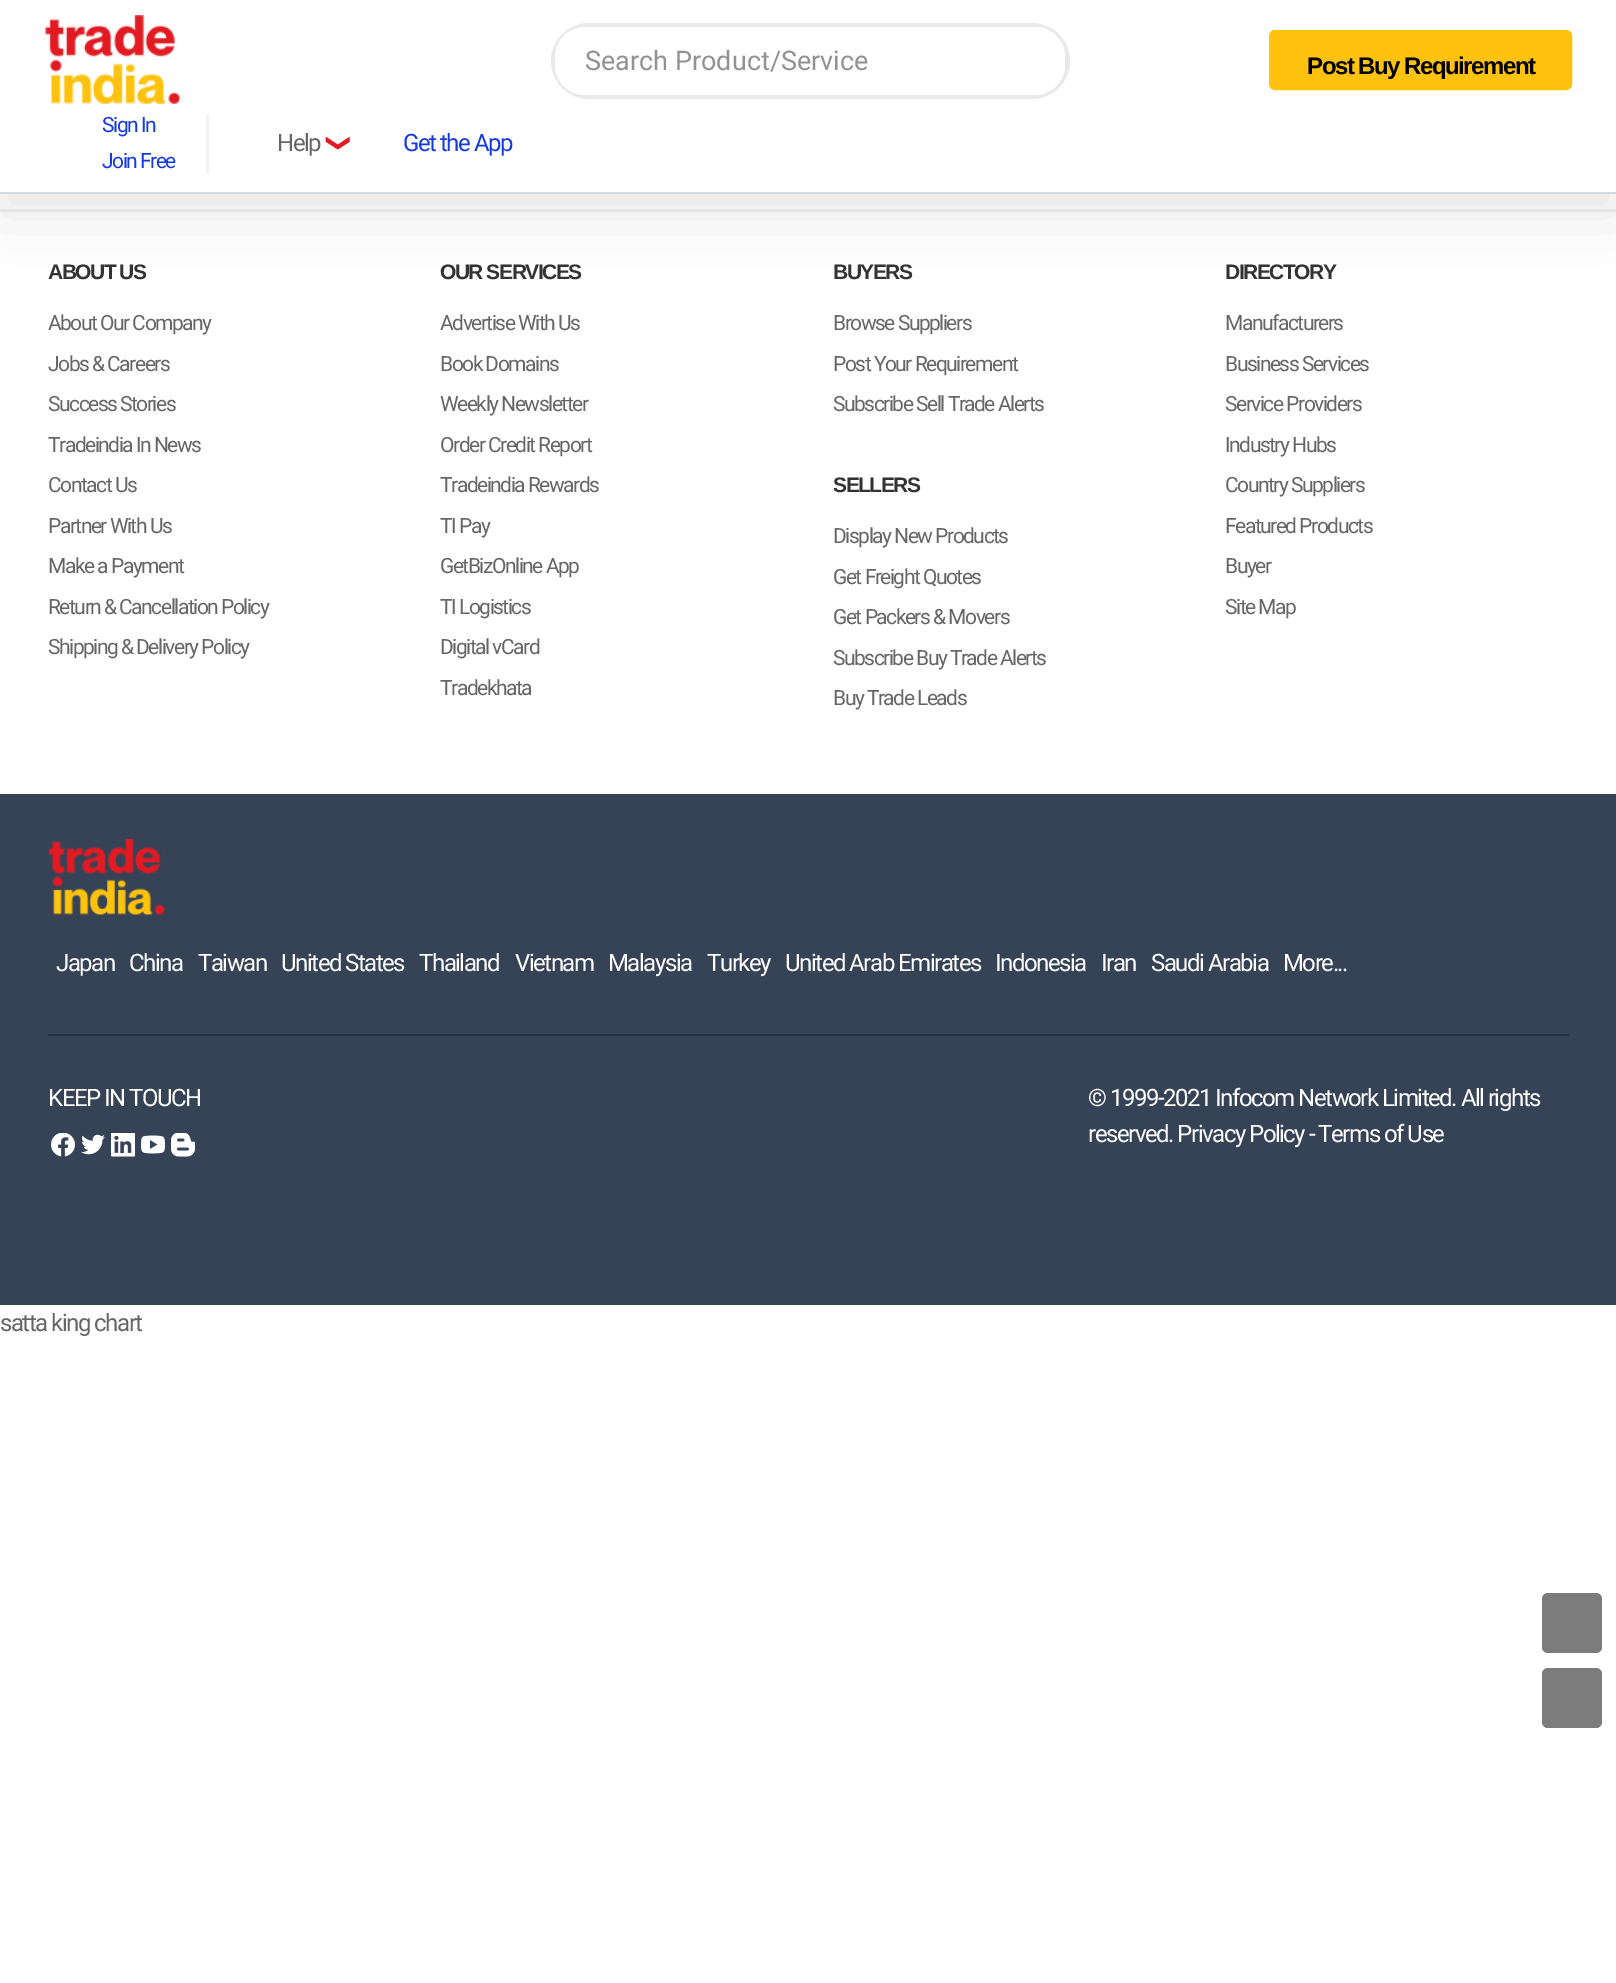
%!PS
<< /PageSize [1616 1983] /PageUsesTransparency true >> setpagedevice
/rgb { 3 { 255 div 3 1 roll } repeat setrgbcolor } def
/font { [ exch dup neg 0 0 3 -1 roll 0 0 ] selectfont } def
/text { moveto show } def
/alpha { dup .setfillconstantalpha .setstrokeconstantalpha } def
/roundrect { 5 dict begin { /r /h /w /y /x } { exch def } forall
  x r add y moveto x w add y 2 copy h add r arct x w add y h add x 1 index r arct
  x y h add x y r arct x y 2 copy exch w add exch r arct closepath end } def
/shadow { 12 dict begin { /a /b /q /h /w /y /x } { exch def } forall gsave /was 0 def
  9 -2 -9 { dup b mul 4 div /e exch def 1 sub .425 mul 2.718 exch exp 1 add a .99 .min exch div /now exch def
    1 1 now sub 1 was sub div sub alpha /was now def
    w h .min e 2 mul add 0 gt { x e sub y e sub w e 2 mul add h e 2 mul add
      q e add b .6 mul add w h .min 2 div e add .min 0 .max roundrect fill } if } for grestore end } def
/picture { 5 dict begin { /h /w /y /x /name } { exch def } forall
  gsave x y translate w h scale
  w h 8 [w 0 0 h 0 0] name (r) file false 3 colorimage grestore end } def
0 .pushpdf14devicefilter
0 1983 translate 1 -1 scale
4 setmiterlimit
255 255 255 rgb
0 0 1616 1983 rectfill
229 229 229 rgb
0 209 1616 3 rectfill
228 228 228 rgb
0 20 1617 193 0 30 1 shadow
255 255 255 rgb
0 0 1616 192 rectfill
210 218 224 rgb
0 192 1616 2 rectfill
(img_01.rgb) 45 15 135 90 picture
233 233 233 rgb
5 setlinewidth
553.5 25.5 514 71 35.5 roundrect stroke
255 255 255 rgb
555 27 510 68 30 roundrect fill
255 194 14 rgb
1270 31 301 58 5 roundrect gsave fill grestore
255 195 14 rgb
2 setlinewidth
stroke
243 243 243 rgb
206 114 3 60 rectfill
54 67 87 rgb
0 794 1616 511 rectfill
(img_02.rgb) 48 839 117 76 picture
37 47 66 rgb
48 1034 1521 2 rectfill
(img_03.rgb) 51 1133 24 24 picture
(img_04.rgb) 81 1134 24 21 picture
(img_05.rgb) 111 1133 24 24 picture
(img_06.rgb) 141 1135 24 19 picture
(img_07.rgb) 171 1133 24 24 picture
124 124 124 rgb
1542 1593 60 60 6 roundrect fill
1542 1668 60 60 6 roundrect fill
/Roboto-Regular 27 font
146 146 146 rgb
(Search Product/Service) 585 70 text
/LiberationSans-Bold 24 font
0 0 0 rgb
1307 74 moveto -1.5 0 (Post Buy Requirement) ashow
/Roboto-Regular 21 font
21 58 226 rgb
102 132 moveto -1.5 0 (Sign In) ashow
102 168 moveto -1.5 0 (Join Free) ashow
/Roboto-Regular 24 font
102 102 102 rgb
277 151 moveto -1.5 0 (Help) ashow
/DejaVuSans-Regular 24 font
226 26 34 rgb
gsave 344 153 translate -90 rotate 0 0 moveto -1.5 0 (❮) ashow grestore
/Roboto-Regular 24 font
21 58 226 rgb
403 151 moveto -1.5 0 (Get the App) ashow
/LiberationSans-Bold 21 font
51 51 51 rgb
48 279 moveto -1.5 0 (ABOUT US) ashow
/Roboto-Regular 21 font
102 102 102 rgb
48 330 moveto -1.5 0 (About Our Company) ashow
48 371 moveto -1.5 0 (Jobs & Careers) ashow
48 411 moveto -1.5 0 (Success Stories) ashow
48 452 moveto -1.5 0 (Tradeindia In News) ashow
48 492 moveto -1.5 0 (Contact Us) ashow
48 533 moveto -1.5 0 (Partner With Us) ashow
48 573 moveto -1.5 0 (Make a Payment) ashow
48 614 moveto -1.5 0 (Return & Cancellation Policy) ashow
48 654 moveto -1.5 0 (Shipping & Delivery Policy) ashow
/LiberationSans-Bold 21 font
51 51 51 rgb
440 279 moveto -1.5 0 (OUR SERVICES) ashow
/Roboto-Regular 21 font
102 102 102 rgb
440 330 moveto -1.5 0 (Advertise With Us) ashow
440 371 moveto -1.5 0 (Book Domains) ashow
440 411 moveto -1.5 0 (Weekly Newsletter) ashow
440 452 moveto -1.5 0 (Order Credit Report) ashow
440 492 moveto -1.5 0 (Tradeindia Rewards) ashow
440 533 moveto -1.5 0 (TI Pay) ashow
440 573 moveto -1.5 0 (GetBizOnline App) ashow
440 614 moveto -1.5 0 (TI Logistics) ashow
440 654 moveto -1.5 0 (Digital vCard) ashow
440 695 moveto -1.5 0 (Tradekhata) ashow
/LiberationSans-Bold 21 font
51 51 51 rgb
833 279 moveto -1.5 0 (BUYERS) ashow
/Roboto-Regular 21 font
102 102 102 rgb
833 330 moveto -1.5 0 (Browse Suppliers) ashow
833 371 moveto -1.5 0 (Post Your Requirement) ashow
833 411 moveto -1.5 0 (Subscribe Sell Trade Alerts) ashow
/LiberationSans-Bold 21 font
51 51 51 rgb
833 492 moveto -1.5 0 (SELLERS) ashow
/Roboto-Regular 21 font
102 102 102 rgb
833 543 moveto -1.5 0 (Display New Products) ashow
833 584 moveto -1.5 0 (Get Freight Quotes) ashow
833 624 moveto -1.5 0 (Get Packers & Movers) ashow
833 665 moveto -1.5 0 (Subscribe Buy Trade Alerts) ashow
833 705 moveto -1.5 0 (Buy Trade Leads) ashow
/LiberationSans-Bold 21 font
51 51 51 rgb
1225 279 moveto -1.5 0 (DIRECTORY) ashow
/Roboto-Regular 21 font
102 102 102 rgb
1225 330 moveto -1.5 0 (Manufacturers) ashow
1225 371 moveto -1.5 0 (Business Services) ashow
1225 411 moveto -1.5 0 (Service Providers) ashow
1225 452 moveto -1.5 0 (Industry Hubs) ashow
1225 492 moveto -1.5 0 (Country Suppliers) ashow
1225 533 moveto -1.5 0 (Featured Products) ashow
1225 573 moveto -1.5 0 (Buyer) ashow
1225 614 moveto -1.5 0 (Site Map) ashow
/Roboto-Regular 24 font
255 255 255 rgb
56 971 moveto -1.5 0 (Japan) ashow
129 971 moveto -1.5 0 (China) ashow
198 971 moveto -1.5 0 (Taiwan) ashow
281 971 moveto -1.5 0 (United States) ashow
419 971 moveto -1.5 0 (Thailand) ashow
515 971 moveto -1.5 0 (Vietnam) ashow
608 971 moveto -1.5 0 (Malaysia) ashow
707 971 moveto -1.5 0 (Turkey) ashow
785 971 moveto -1.5 0 (United Arab Emirates) ashow
995 971 moveto -1.5 0 (Indonesia) ashow
1101 971 moveto -1.5 0 (Iran) ashow
1151 971 moveto -1.5 0 (Saudi Arabia) ashow
1283 971 moveto -1.5 0 (More...) ashow
48 1106 moveto -1.5 0 (KEEP IN TOUCH) ashow
1088 1106 moveto -1.5 0 (© 1999-2021 Infocom Network Limited. All rights) ashow
1088 1142 moveto -1.5 0 (reserved. Privacy Policy - Terms of Use) ashow
102 102 102 rgb
0 1331 moveto -1.5 0 (satta king chart) ashow
.poppdf14devicefilter showpage
